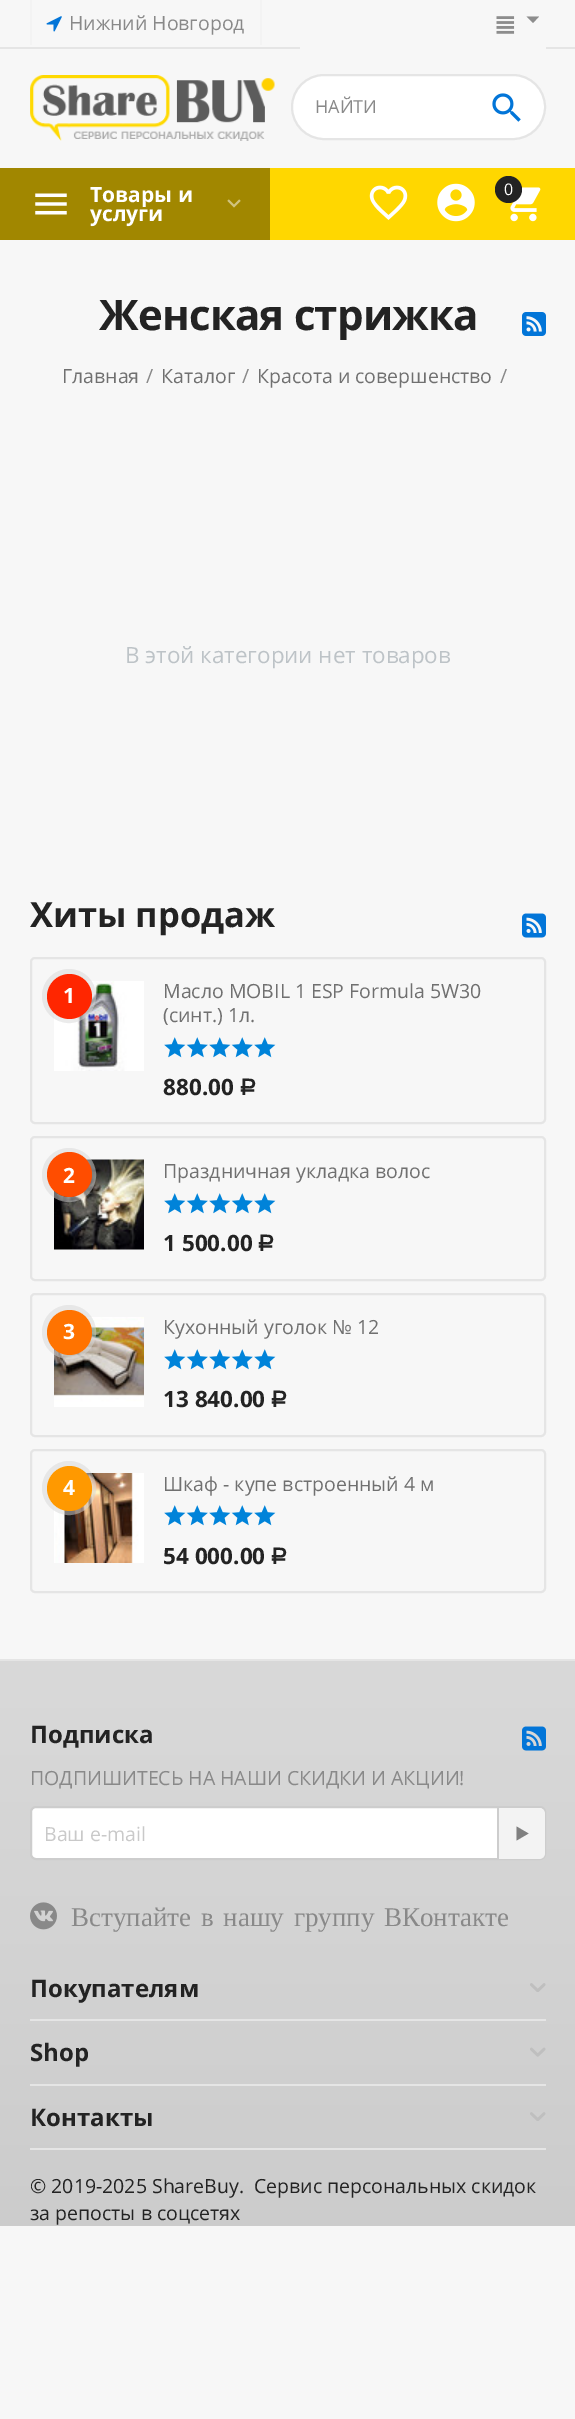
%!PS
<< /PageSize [575 2419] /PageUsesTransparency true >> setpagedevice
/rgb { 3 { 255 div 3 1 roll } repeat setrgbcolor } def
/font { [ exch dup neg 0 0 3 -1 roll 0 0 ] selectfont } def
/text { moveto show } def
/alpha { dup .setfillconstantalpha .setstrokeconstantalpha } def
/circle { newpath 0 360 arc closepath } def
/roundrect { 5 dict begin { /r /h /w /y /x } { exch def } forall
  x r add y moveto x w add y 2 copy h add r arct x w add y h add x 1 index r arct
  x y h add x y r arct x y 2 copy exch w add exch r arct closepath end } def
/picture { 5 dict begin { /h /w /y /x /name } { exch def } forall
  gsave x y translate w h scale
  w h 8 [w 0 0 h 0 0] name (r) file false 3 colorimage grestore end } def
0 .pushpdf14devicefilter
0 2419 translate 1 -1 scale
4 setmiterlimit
247 247 247 rgb
0 0 575 2419 rectfill
229 229 229 rgb
0 47 575 2 rectfill
243 243 243 rgb
260 0 2 45 rectfill
30 0 2 45 rectfill
(img_01.rgb) 46 16 16 16 picture
(img_02.rgb) 496 16 19 18 picture
141 141 141 rgb
533 23 moveto -6.5 -6.5 rlineto 12.5 0 rlineto closepath fill
(img_03.rgb) 30 75 245 66 picture
247 247 247 rgb
300 47 246 2 rectfill
255 255 255 rgb
292 75 253 64 32 roundrect gsave fill grestore
229 229 229 rgb
2 setlinewidth
stroke
(img_04.rgb) 492 93 29 29 picture
255 215 0 rgb
270 168 305 72 rectfill
(img_05.rgb) 369 185 39 35 picture
(img_06.rgb) 437 183 38 39 picture
(img_07.rgb) 510 187 31 35 picture
35 35 35 rgb
508.5 189.5 13.5 circle fill
161 135 0 rgb
0 168 270 72 rectfill
(img_08.rgb) 35 193 32 22 picture
(img_09.rgb) 227 199 14 9 picture
(img_10.rgb) 522 312 24 24 picture
(img_11.rgb) 522 913 24 25 picture
229 229 229 rgb
31 958 514 165 4 roundrect stroke
(img_12.rgb) 54 981 90 90 picture
0.5 alpha
215 215 215 rgb
5 setlinewidth
69 996 24.5 circle stroke
1 alpha
255 38 0 rgb
69.5 996.5 22.5 circle fill
(img_13.rgb) 164 1037 22 21 picture
(img_14.rgb) 186 1037 22 21 picture
(img_13.rgb) 209 1037 22 21 picture
(img_14.rgb) 231 1037 22 21 picture
(img_13.rgb) 254 1037 22 21 picture
229 229 229 rgb
2 setlinewidth
31 1137 514 143 4 roundrect stroke
(img_15.rgb) 54 1159 90 91 picture
0.5 alpha
215 215 215 rgb
5 setlinewidth
69 1175 24.5 circle stroke
1 alpha
255 77 0 rgb
69.5 1174.5 22.5 circle fill
(img_13.rgb) 164 1193 22 21 picture
(img_14.rgb) 186 1193 22 21 picture
(img_13.rgb) 209 1193 22 21 picture
(img_14.rgb) 231 1193 22 21 picture
(img_13.rgb) 254 1193 22 21 picture
229 229 229 rgb
2 setlinewidth
31 1294 514 142 4 roundrect stroke
(img_16.rgb) 54 1317 90 90 picture
0.5 alpha
215 215 215 rgb
5 setlinewidth
69 1332 24.5 circle stroke
1 alpha
255 115 0 rgb
69.5 1332.5 22.5 circle fill
(img_13.rgb) 164 1349 22 21 picture
(img_14.rgb) 186 1349 22 21 picture
(img_13.rgb) 209 1349 22 21 picture
(img_14.rgb) 231 1349 22 21 picture
(img_13.rgb) 254 1349 22 21 picture
229 229 229 rgb
2 setlinewidth
31 1450 514 142 4 roundrect stroke
(img_17.rgb) 54 1473 90 90 picture
0.5 alpha
215 215 215 rgb
5 setlinewidth
69 1488 24.5 circle stroke
1 alpha
255 153 0 rgb
69.5 1488.5 22.5 circle fill
(img_13.rgb) 164 1505 22 21 picture
(img_14.rgb) 186 1505 22 21 picture
(img_13.rgb) 209 1505 22 21 picture
(img_14.rgb) 231 1505 22 21 picture
(img_13.rgb) 254 1505 22 21 picture
gsave 0 1661 moveto 575 0 rlineto 0 565 rlineto -575 0 rlineto closepath clip newpath
<< /ShadingType 2 /ColorSpace /DeviceRGB /Coords [288 1661 288 2226] /Extend [true true] /Function << /FunctionType 2 /Domain [0 1] /C0 [0.851 0.851 0.851] /C1 [0.8 0.8 0.8] /N 1 >> >> shfill grestore
229 229 229 rgb
0 1659 575 2 rectfill
(img_18.rgb) 522 1726 24 25 picture
255 255 255 rgb
31 1807 514 52 5 roundrect gsave fill grestore
205 205 205 rgb
2 setlinewidth
stroke
243 243 243 rgb
497 1808 moveto 42 0 rlineto 3.5 0 6 2.5 6 6 rcurveto 0 39 rlineto 0 3.5 -2.5 6 -6 6 rcurveto -42 0 rlineto closepath fill
205 205 205 rgb
497 1808 2 51 rectfill
128 128 128 rgb
516.5 1826.5 moveto 12 7 rlineto -12 7 rlineto closepath fill
(img_19.rgb) 30 1902 27 28 picture
229 229 229 rgb
30 2019 516 2 rectfill
(img_20.rgb) 530 1983 16 9 picture
30 2084 516 2 rectfill
(img_21.rgb) 530 2047 16 10 picture
30 2148 516 2 rectfill
(img_22.rgb) 530 2112 16 9 picture
/OpenSans-Regular 19.5 font
137 137 137 rgb
(Нижний Новгород) 69 30 text
/OpenSans-Regular 18 font
(НАЙТИ) 315 113 text
/OpenSans-Regular 16 font
255 255 255 rgb
(0) 504 195 text
/OpenSans-Bold 21 font
(Товары и) 90 202 text
(услуги) 90 221 text
/OpenSans-Bold 42 font
35 35 35 rgb
99 330 moveto -0.8 0 (Женская стрижка) ashow
/OpenSans-Regular 19.5 font
112 112 112 rgb
(Главная) 62 383 text
137 137 137 rgb
(/) 146 383 text
112 112 112 rgb
(Каталог) 161 383 text
137 137 137 rgb
(/) 242 383 text
112 112 112 rgb
(Красота и совершенство) 257 383 text
137 137 137 rgb
(/) 500 383 text
/OpenSans-Regular 22.4 font
189 195 199 rgb
(В этой категории нет товаров) 125 663 text
/OpenSans-Bold 34.5 font
35 35 35 rgb
(Хиты продаж) 30 927 text
/OpenSans-Bold 21 font
255 255 255 rgb
(1) 63 1003 text
/OpenSans-Regular 19.5 font
112 112 112 rgb
(Масло MOBIL 1 ESP Formula 5W30) 163 998 text
(\(синт.\) 1л.) 163 1022 text
/OpenSans-Bold 22.5 font
35 35 35 rgb
(880.00) 163 1095 text
/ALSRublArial-Bold 22.5 font
(Р) 239 1095 text
/OpenSans-Bold 21 font
255 255 255 rgb
(2) 63 1183 text
/OpenSans-Regular 19.5 font
112 112 112 rgb
(Праздничная укладка волос) 163 1178 text
/OpenSans-Bold 22.5 font
35 35 35 rgb
(1 500.00) 163 1251 text
/ALSRublArial-Bold 22.5 font
(Р) 257 1251 text
/OpenSans-Bold 21 font
255 255 255 rgb
(3) 63 1339 text
/OpenSans-Regular 19.5 font
112 112 112 rgb
(Кухонный уголок № 12) 163 1334 text
/OpenSans-Bold 22.5 font
35 35 35 rgb
(13 840.00) 163 1407 text
/ALSRublArial-Bold 22.5 font
(Р) 270 1407 text
/OpenSans-Bold 21 font
255 255 255 rgb
(4) 63 1495 text
/OpenSans-Regular 19.5 font
112 112 112 rgb
(Шкаф - купе встроенный 4 м) 163 1491 text
/OpenSans-Bold 22.5 font
35 35 35 rgb
(54 000.00) 163 1564 text
/ALSRublArial-Bold 22.5 font
(Р) 270 1564 text
/OpenSans-Bold 24 font
(Подписка) 30 1743 text
/OpenSans-Regular 19.5 font
137 137 137 rgb
(ПОДПИШИТЕСЬ НА НАШИ СКИДКИ И АКЦИИ!) 30 1785 text
201 201 201 rgb
(Ваш e-mail) 44 1841 text
/LiberationSerif-Regular 27 font
137 137 137 rgb
71 1926 moveto 3 0 32 (Вступайте в нашу группу ВКонтакте) widthshow
/OpenSans-Bold 24 font
35 35 35 rgb
(Покупателям) 30 1997 text
(Shop) 30 2061 text
(Контакты) 30 2126 text
/OpenSans-Regular 19.5 font
(© 2019-2025 ShareBuy.  Сервис персональных скидок) 30 2193 text
(за репосты в соцсетях) 30 2220 text
.poppdf14devicefilter showpage
